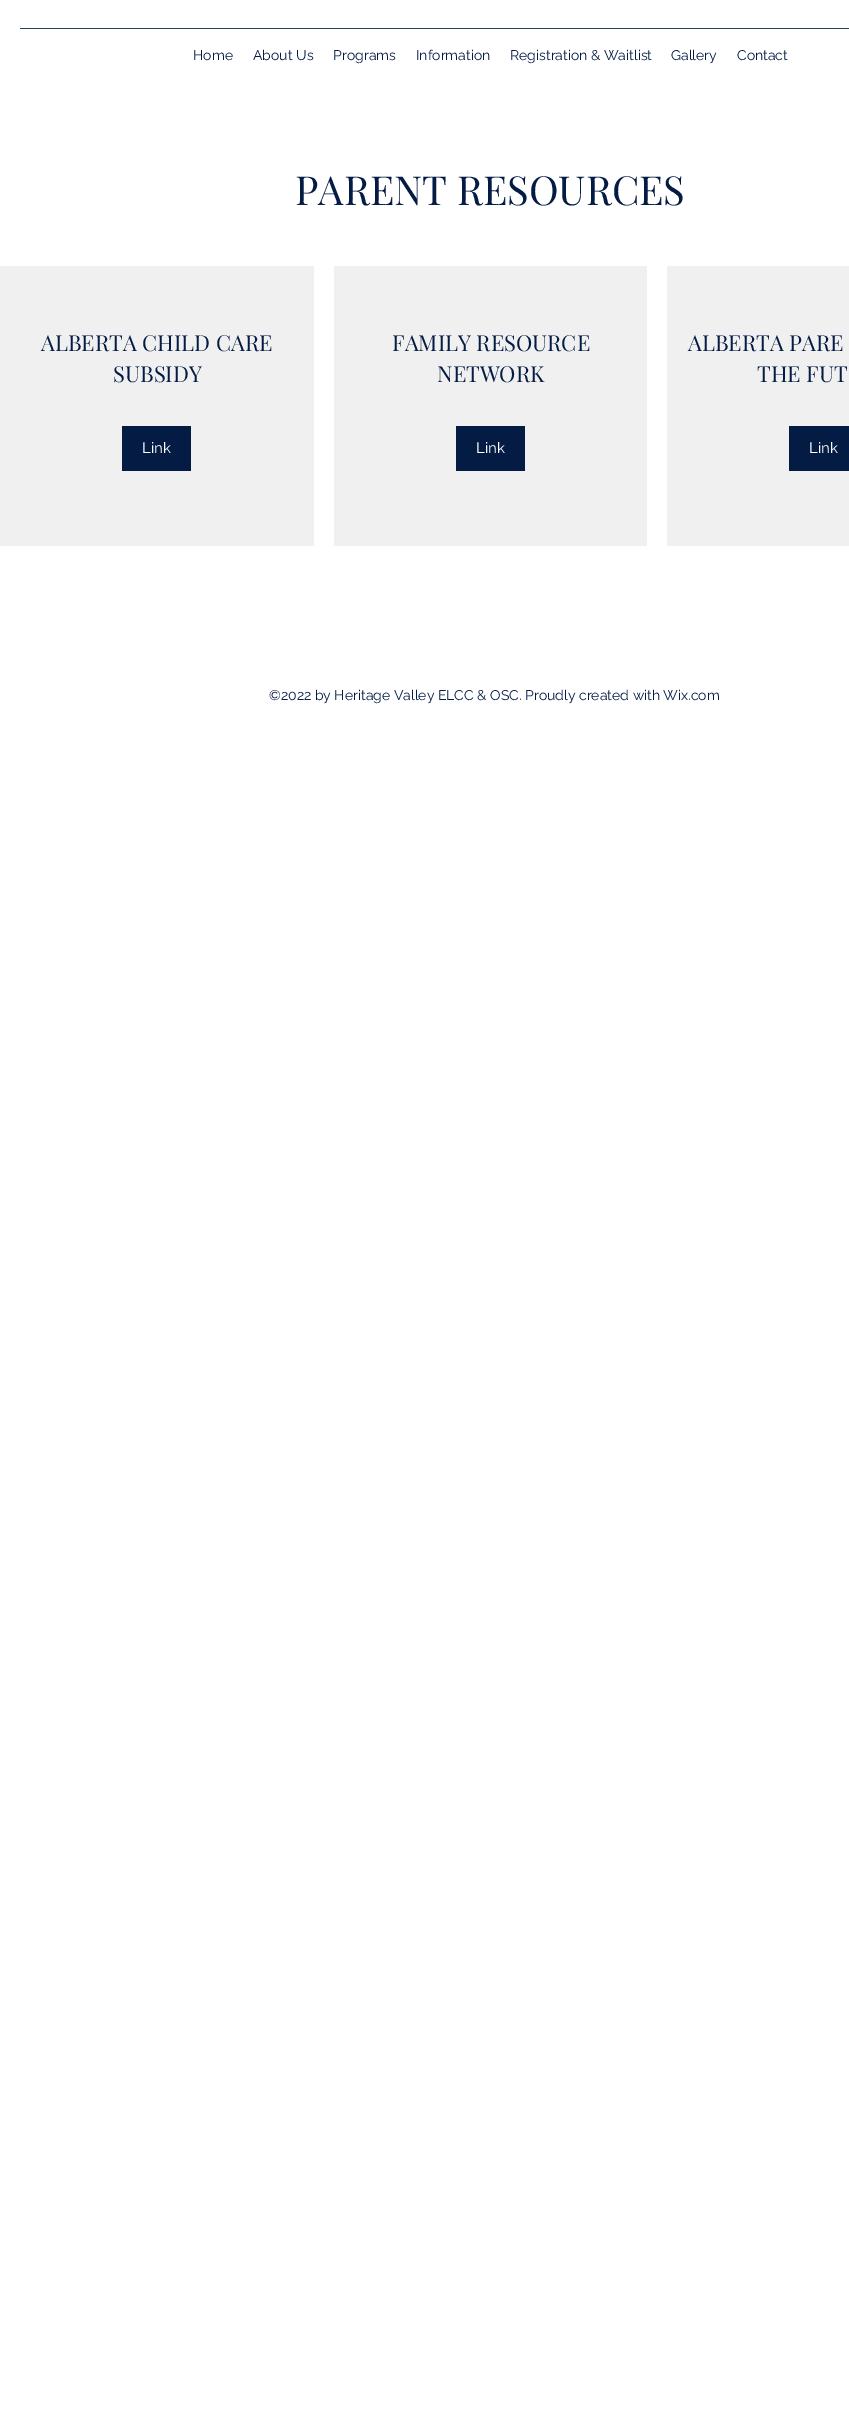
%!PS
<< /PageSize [849 2434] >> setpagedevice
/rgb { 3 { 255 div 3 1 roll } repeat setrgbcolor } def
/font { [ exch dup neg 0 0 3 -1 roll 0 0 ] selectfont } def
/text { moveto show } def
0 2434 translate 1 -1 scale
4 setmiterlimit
255 255 255 rgb
0 0 849 2434 rectfill
42 62 96 rgb
20 28 829 1 rectfill
240 240 240 rgb
0 266 314 280 rectfill
4 28 68 rgb
122 426 69 45 rectfill
240 240 240 rgb
334 266 313 280 rectfill
4 28 68 rgb
456 426 69 45 rectfill
240 240 240 rgb
667 266 182 280 rectfill
4 28 68 rgb
789 426 60 45 rectfill
/Raleway-Regular 14 font
(Home) 193 60 text
(About Us) 253 60 text
(Programs) 333 60 text
(Information) 416 60 text
(Registration & Waitlist) 510 60 text
(Gallery) 671 60 text
(Contact) 737 60 text
/PlayfairDisplay-Regular 40 font
(PARENT RESOURCES) 295 205 text
/PlayfairDisplay-Regular 22 font
(ALBERTA CHILD CARE) 41 351 text
(SUBSIDY) 113 382 text
/Raleway-Regular 15 font
255 255 255 rgb
(Link) 142 453 text
/PlayfairDisplay-Regular 22 font
4 28 68 rgb
(FAMILY RESOURCE) 392 351 text
(NETWORK) 437 382 text
/Raleway-Regular 15 font
255 255 255 rgb
(Link) 476 453 text
/PlayfairDisplay-Regular 22 font
4 28 68 rgb
(ALBERTA PARE) 688 351 text
(THE FUT) 757 382 text
/Raleway-Regular 15 font
255 255 255 rgb
(Link) 809 453 text
/Raleway-Regular 14 font
4 28 68 rgb
(©2022 by Heritage Valley ELCC & OSC. Proudly created with Wix.com) 269 700 text
showpage
